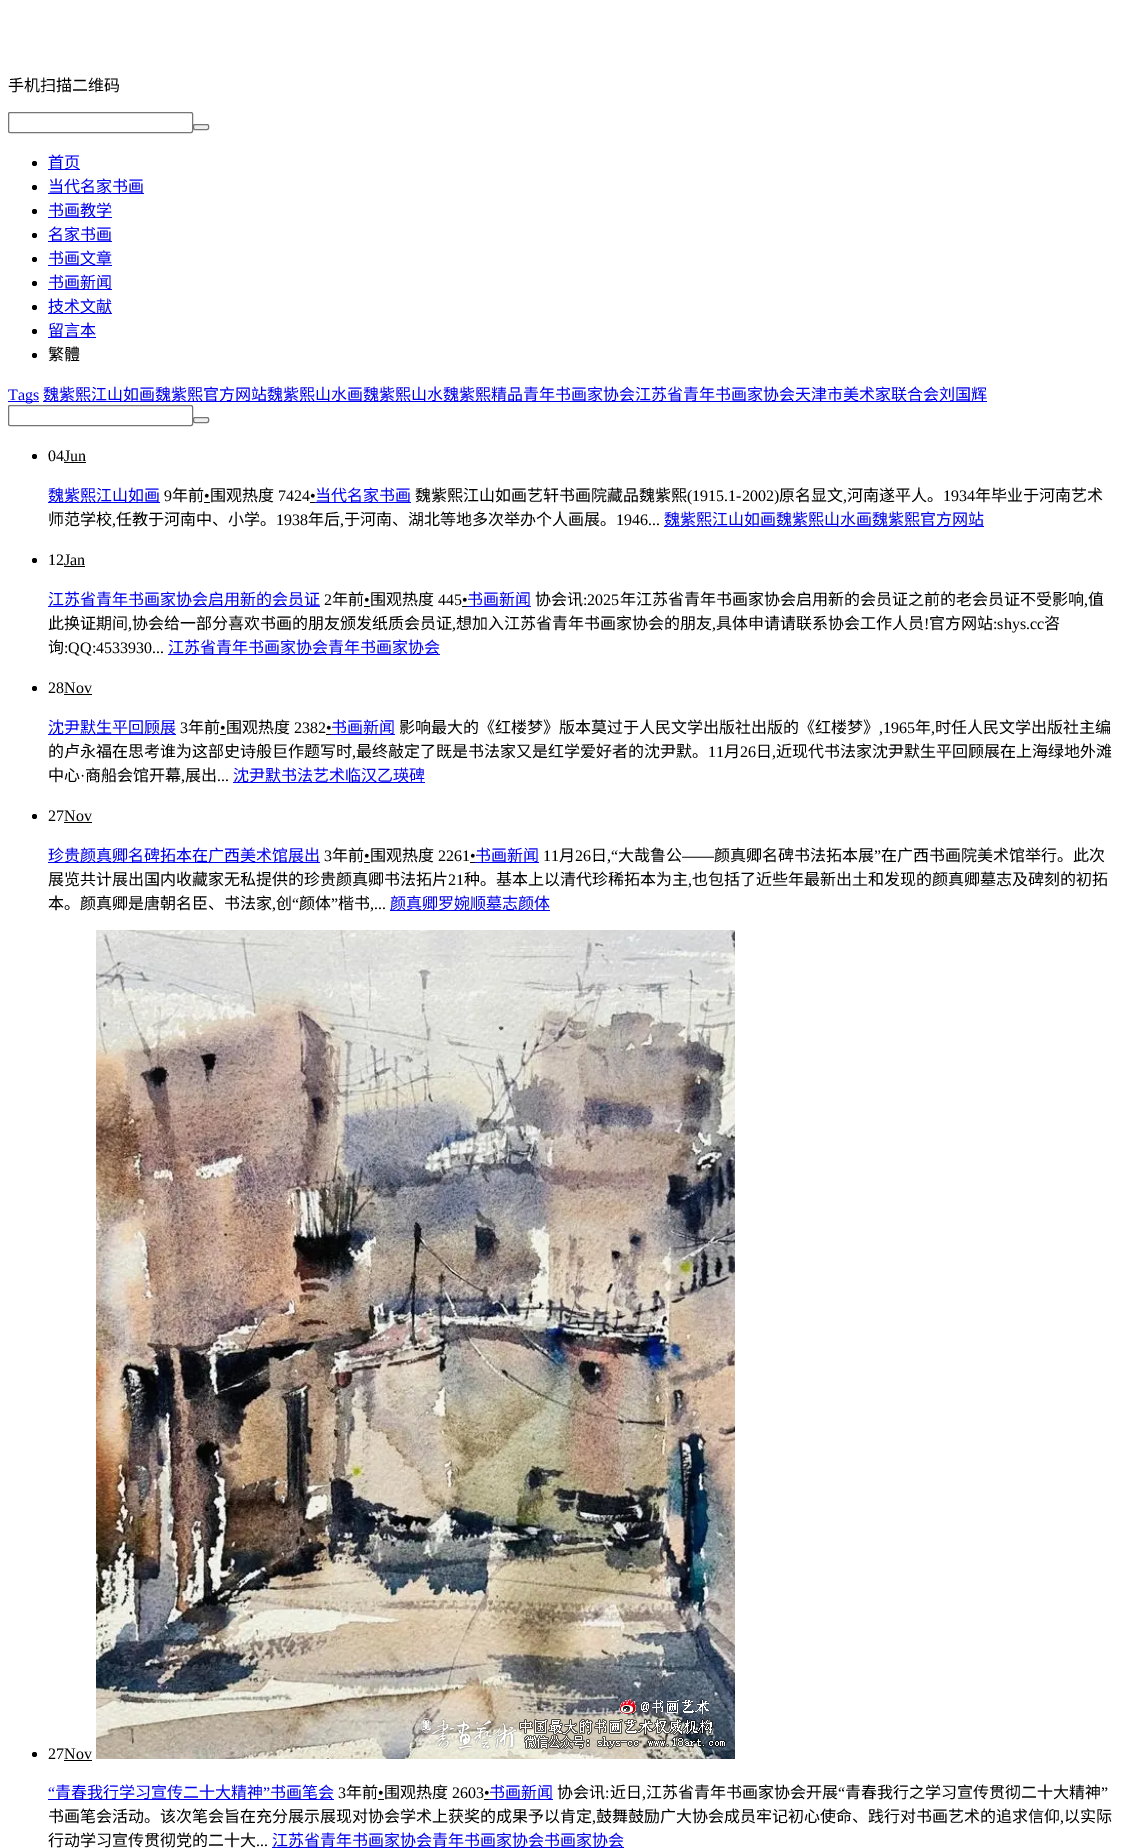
%!PS
<< /PageSize [1127 1848] >> setpagedevice
/rgb { 3 { 255 div 3 1 roll } repeat setrgbcolor } def
/font { [ exch dup neg 0 0 3 -1 roll 0 0 ] selectfont } def
/text { moveto show } def
/circle { newpath 0 360 arc closepath } def
/roundrect { 5 dict begin { /r /h /w /y /x } { exch def } forall
  x r add y moveto x w add y 2 copy h add r arct x w add y h add x 1 index r arct
  x y h add x y r arct x y 2 copy exch w add exch r arct closepath end } def
/picture { 5 dict begin { /h /w /y /x /name } { exch def } forall
  gsave x y translate w h scale
  w h 8 [w 0 0 h 0 0] name (r) file false 3 colorimage grestore end } def
0 1848 translate 1 -1 scale
4 setmiterlimit
255 255 255 rgb
0 0 1127 1848 rectfill
118 118 118 rgb
8.5 112.5 184 20 1.5 roundrect stroke
239 239 239 rgb
193.5 124.5 15 5 1.5 roundrect gsave fill grestore
118 118 118 rgb
stroke
0 0 0 rgb
34.5 163.5 2.5 circle fill
0 0 238 rgb
48 169 32 1 rectfill
0 0 0 rgb
34.5 187.5 2.5 circle fill
0 0 238 rgb
48 193 96 1 rectfill
0 0 0 rgb
34.5 211.5 2.5 circle fill
0 0 238 rgb
48 217 64 1 rectfill
0 0 0 rgb
34.5 235.5 2.5 circle fill
0 0 238 rgb
48 241 64 1 rectfill
0 0 0 rgb
34.5 259.5 2.5 circle fill
0 0 238 rgb
48 265 64 1 rectfill
0 0 0 rgb
34.5 283.5 2.5 circle fill
0 0 238 rgb
48 289 64 1 rectfill
0 0 0 rgb
34.5 307.5 2.5 circle fill
0 0 238 rgb
48 313 64 1 rectfill
0 0 0 rgb
34.5 331.5 2.5 circle fill
0 0 238 rgb
48 337 48 1 rectfill
0 0 0 rgb
34.5 355.5 2.5 circle fill
0 0 238 rgb
8 401 31 1 rectfill
43 401 944 1 rectfill
118 118 118 rgb
8.5 405.5 184 20 1.5 roundrect stroke
239 239 239 rgb
193.5 417.5 15 5 1.5 roundrect gsave fill grestore
118 118 118 rgb
stroke
0 0 0 rgb
34.5 456.5 2.5 circle fill
64 462 22 1 rectfill
0 0 238 rgb
48 502 112 1 rectfill
0 0 0 rgb
204 502 6 1 rectfill
310 502 5 1 rectfill
0 0 238 rgb
315 502 96 1 rectfill
664 526 320 1 rectfill
0 0 0 rgb
34.5 560.5 2.5 circle fill
64 566 21 1 rectfill
0 0 238 rgb
48 606 272 1 rectfill
0 0 0 rgb
364 606 6 1 rectfill
462 606 5 1 rectfill
0 0 238 rgb
467 606 64 1 rectfill
168 654 272 1 rectfill
0 0 0 rgb
34.5 688.5 2.5 circle fill
64 694 28 1 rectfill
0 0 238 rgb
48 734 128 1 rectfill
0 0 0 rgb
220 734 6 1 rectfill
326 734 5 1 rectfill
0 0 238 rgb
331 734 64 1 rectfill
233 782 192 1 rectfill
0 0 0 rgb
34.5 816.5 2.5 circle fill
64 822 28 1 rectfill
0 0 238 rgb
48 862 272 1 rectfill
0 0 0 rgb
470 862 5 1 rectfill
0 0 238 rgb
475 862 64 1 rectfill
0 0 0 rgb
364 862 6 1 rectfill
0 0 238 rgb
390 910 160 1 rectfill
0 0 0 rgb
34.5 1754.5 2.5 circle fill
64 1760 28 1 rectfill
(img_01.rgb) 96 930 639 829 picture
0 0 238 rgb
48 1799 286 1 rectfill
0 0 0 rgb
484 1799 5 1 rectfill
0 0 238 rgb
489 1799 64 1 rectfill
0 0 0 rgb
378 1799 6 1 rectfill
0 0 238 rgb
272 1847 352 1 rectfill
/NotoSansCJKSC-Regular 16 font
0 0 0 rgb
(手机扫描二维码) 8 91 text
0 0 238 rgb
(首页) 48 168 text
(当代名家书画) 48 192 text
(书画教学) 48 216 text
(名家书画) 48 240 text
(书画文章) 48 264 text
(书画新闻) 48 288 text
(技术文献) 48 312 text
(留言本) 48 336 text
0 0 0 rgb
(繁體) 48 360 text
/LiberationSerif-Regular 16 font
0 0 238 rgb
(Tags) 8 400 text
/NotoSansCJKSC-Regular 16 font
(魏紫熙江山如画魏紫熙官方网站魏紫熙山水画魏紫熙山水魏紫熙精品青年书画家协会江苏省青年书画家协会天津市美术家联合会刘国辉) 43 400 text
/LiberationSerif-Regular 16 font
0 0 0 rgb
(04Jun) 48 461 text
/NotoSansCJKSC-Regular 16 font
0 0 238 rgb
(魏紫熙江山如画) 48 501 text
/LiberationSerif-Regular 16 font
0 0 0 rgb
(9) 164 501 text
/NotoSansCJKSC-Regular 16 font
(年前) 172 501 text
/LiberationSerif-Regular 16 font
(•) 204 501 text
/NotoSansCJKSC-Regular 16 font
(围观热度) 210 501 text
/LiberationSerif-Regular 16 font
(7424•) 278 501 text
/NotoSansCJKSC-Regular 16 font
0 0 238 rgb
(当代名家书画) 315 501 text
0 0 0 rgb
(魏紫熙江山如画艺轩书画院藏品魏紫熙) 415 501 text
/LiberationSerif-Regular 16 font
(\(1915.1-2002\)) 687 501 text
/NotoSansCJKSC-Regular 16 font
(原名显文) 779 501 text
(河南遂平人。) 847 501 text
/LiberationSerif-Regular 16 font
(1934) 943 501 text
/NotoSansCJKSC-Regular 16 font
(年毕业于河南艺术) 975 501 text
/LiberationSerif-Regular 16 font
(,) 843 501 text
/NotoSansCJKSC-Regular 16 font
(师范学校) 48 525 text
/LiberationSerif-Regular 16 font
(,) 112 525 text
/NotoSansCJKSC-Regular 16 font
(任教于河南中、小学。) 116 525 text
/LiberationSerif-Regular 16 font
(1938) 276 525 text
/NotoSansCJKSC-Regular 16 font
(年后) 308 525 text
/LiberationSerif-Regular 16 font
(,) 340 525 text
/NotoSansCJKSC-Regular 16 font
(于河南、湖北等地多次举办个人画展。) 344 525 text
/LiberationSerif-Regular 16 font
(1946...) 616 525 text
/NotoSansCJKSC-Regular 16 font
0 0 238 rgb
(魏紫熙江山如画魏紫熙山水画魏紫熙官方网站) 664 525 text
/LiberationSerif-Regular 16 font
0 0 0 rgb
(12Jan) 48 565 text
/NotoSansCJKSC-Regular 16 font
0 0 238 rgb
(江苏省青年书画家协会启用新的会员证) 48 605 text
/LiberationSerif-Regular 16 font
0 0 0 rgb
(2) 324 605 text
/NotoSansCJKSC-Regular 16 font
(年前) 332 605 text
/LiberationSerif-Regular 16 font
(•) 364 605 text
/NotoSansCJKSC-Regular 16 font
(围观热度) 370 605 text
/LiberationSerif-Regular 16 font
(445•) 438 605 text
/NotoSansCJKSC-Regular 16 font
0 0 238 rgb
(书画新闻) 467 605 text
0 0 0 rgb
(协会讯) 535 605 text
/LiberationSerif-Regular 16 font
(:2025) 583 605 text
/NotoSansCJKSC-Regular 16 font
(年江苏省青年书画家协会启用新的会员证之前的老会员证不受影响) 620 605 text
(值) 1088 605 text
/LiberationSerif-Regular 16 font
(,) 1084 605 text
/NotoSansCJKSC-Regular 16 font
(此换证期间) 48 629 text
/LiberationSerif-Regular 16 font
(,) 128 629 text
/NotoSansCJKSC-Regular 16 font
(协会给一部分喜欢书画的朋友颁发纸质会员证) 132 629 text
/LiberationSerif-Regular 16 font
(,) 452 629 text
/NotoSansCJKSC-Regular 16 font
(想加入江苏省青年书画家协会的朋友) 456 629 text
/LiberationSerif-Regular 16 font
(,) 712 629 text
/NotoSansCJKSC-Regular 16 font
(具体申请请联系协会工作人员) 716 629 text
/LiberationSerif-Regular 16 font
(!) 924 629 text
/NotoSansCJKSC-Regular 16 font
(官方网站) 929 629 text
/LiberationSerif-Regular 16 font
(:shys.cc) 993 629 text
/NotoSansCJKSC-Regular 16 font
(咨) 1044 629 text
(询) 48 653 text
/LiberationSerif-Regular 16 font
(:QQ:4533930...) 64 653 text
/NotoSansCJKSC-Regular 16 font
0 0 238 rgb
(江苏省青年书画家协会青年书画家协会) 168 653 text
/LiberationSerif-Regular 16 font
0 0 0 rgb
(28Nov) 48 693 text
/NotoSansCJKSC-Regular 16 font
0 0 238 rgb
(沈尹默生平回顾展) 48 733 text
/LiberationSerif-Regular 16 font
0 0 0 rgb
(3) 180 733 text
/NotoSansCJKSC-Regular 16 font
(年前) 188 733 text
/LiberationSerif-Regular 16 font
(•) 220 733 text
/NotoSansCJKSC-Regular 16 font
(围观热度) 226 733 text
/LiberationSerif-Regular 16 font
(2382•) 294 733 text
/NotoSansCJKSC-Regular 16 font
0 0 238 rgb
(书画新闻) 331 733 text
0 0 0 rgb
(影响最大的《红楼梦》版本莫过于人民文学出版社出版的《红楼梦》) 399 733 text
/LiberationSerif-Regular 16 font
(,1965) 879 733 text
/NotoSansCJKSC-Regular 16 font
(年) 915 733 text
(时任人民文学出版社主编) 935 733 text
/LiberationSerif-Regular 16 font
(,) 931 733 text
/NotoSansCJKSC-Regular 16 font
(的卢永福在思考谁为这部史诗般巨作题写时) 48 757 text
/LiberationSerif-Regular 16 font
(,) 352 757 text
/NotoSansCJKSC-Regular 16 font
(最终敲定了既是书法家又是红学爱好者的沈尹默。) 356 757 text
/LiberationSerif-Regular 16 font
(11) 708 757 text
/NotoSansCJKSC-Regular 16 font
(月) 724 757 text
/LiberationSerif-Regular 16 font
(26) 740 757 text
/NotoSansCJKSC-Regular 16 font
(日) 756 757 text
/LiberationSerif-Regular 16 font
(,) 772 757 text
/NotoSansCJKSC-Regular 16 font
(近现代书法家沈尹默生平回顾展在上海绿地外滩) 776 757 text
(中心) 48 781 text
/LiberationSerif-Regular 16 font
(·) 80 781 text
/NotoSansCJKSC-Regular 16 font
(商船会馆开幕) 85 781 text
(展出) 185 781 text
0 0 238 rgb
(沈尹默书法艺术临汉乙瑛碑) 233 781 text
/LiberationSerif-Regular 16 font
0 0 0 rgb
(,) 181 781 text
(...) 217 781 text
(27Nov) 48 821 text
/NotoSansCJKSC-Regular 16 font
0 0 238 rgb
(珍贵颜真卿名碑拓本在广西美术馆展出) 48 861 text
/LiberationSerif-Regular 16 font
0 0 0 rgb
(3) 324 861 text
/NotoSansCJKSC-Regular 16 font
(年前) 332 861 text
(围观热度) 370 861 text
/LiberationSerif-Regular 16 font
(2261•) 438 861 text
/NotoSansCJKSC-Regular 16 font
0 0 238 rgb
(书画新闻) 475 861 text
/LiberationSerif-Regular 16 font
0 0 0 rgb
(11) 543 861 text
/NotoSansCJKSC-Regular 16 font
(月) 559 861 text
/LiberationSerif-Regular 16 font
(26) 575 861 text
/NotoSansCJKSC-Regular 16 font
(日) 591 861 text
/LiberationSerif-Regular 16 font
(,“) 607 861 text
/NotoSansCJKSC-Regular 16 font
(大哉鲁公) 618 861 text
/LiberationSerif-Regular 16 font
(”) 874 861 text
/NotoSansCJKSC-Regular 16 font
(在广西书画院美术馆举行。此次) 881 861 text
/LiberationSerif-Regular 16 font
(•) 364 861 text
(——) 682 861 text
/NotoSansCJKSC-Regular 16 font
(颜真卿名碑书法拓本展) 714 861 text
(展览共计展出国内收藏家无私提供的珍贵颜真卿书法拓片) 48 885 text
/LiberationSerif-Regular 16 font
(21) 448 885 text
/NotoSansCJKSC-Regular 16 font
(种。基本上以清代珍稀拓本为主) 464 885 text
(也包括了近些年最新出土和发现的颜真卿墓志及碑刻的初拓) 692 885 text
/LiberationSerif-Regular 16 font
(,) 688 885 text
/NotoSansCJKSC-Regular 16 font
(本。颜真卿是唐朝名臣、书法家) 48 909 text
(创) 276 909 text
/LiberationSerif-Regular 16 font
(“) 292 909 text
/NotoSansCJKSC-Regular 16 font
(颜体) 299 909 text
/LiberationSerif-Regular 16 font
(”) 331 909 text
/NotoSansCJKSC-Regular 16 font
(楷书) 338 909 text
0 0 238 rgb
(颜真卿罗婉顺墓志颜体) 390 909 text
/LiberationSerif-Regular 16 font
0 0 0 rgb
(,) 272 909 text
(,...) 370 909 text
(27Nov) 48 1759 text
0 0 238 rgb
(“) 48 1798 text
/NotoSansCJKSC-Regular 16 font
(青春我行学习宣传二十大精神) 55 1798 text
/LiberationSerif-Regular 16 font
(”) 263 1798 text
/NotoSansCJKSC-Regular 16 font
(书画笔会) 270 1798 text
/LiberationSerif-Regular 16 font
0 0 0 rgb
(3) 338 1798 text
/NotoSansCJKSC-Regular 16 font
(年前) 346 1798 text
(围观热度) 384 1798 text
/LiberationSerif-Regular 16 font
(2603•) 452 1798 text
/NotoSansCJKSC-Regular 16 font
0 0 238 rgb
(书画新闻) 489 1798 text
0 0 0 rgb
(协会讯) 557 1798 text
(近日) 610 1798 text
(江苏省青年书画家协会开展) 646 1798 text
/LiberationSerif-Regular 16 font
(“) 838 1798 text
/NotoSansCJKSC-Regular 16 font
(青春我行之学习宣传贯彻二十大精神) 845 1798 text
/LiberationSerif-Regular 16 font
(”) 1101 1798 text
(•) 378 1798 text
(:) 605 1798 text
(,) 642 1798 text
/NotoSansCJKSC-Regular 16 font
(书画笔会活动。该次笔会旨在充分展示展现对协会学术上获奖的成果予以肯定) 48 1822 text
/LiberationSerif-Regular 16 font
(,) 592 1822 text
/NotoSansCJKSC-Regular 16 font
(鼓舞鼓励广大协会成员牢记初心使命、践行对书画艺术的追求信仰) 596 1822 text
/LiberationSerif-Regular 16 font
(,) 1060 1822 text
/NotoSansCJKSC-Regular 16 font
(以实际) 1064 1822 text
(行动学习宣传贯彻党的二十大) 48 1846 text
/LiberationSerif-Regular 16 font
(...) 256 1846 text
/NotoSansCJKSC-Regular 16 font
0 0 238 rgb
(江苏省青年书画家协会青年书画家协会书画家协会) 272 1846 text
showpage
